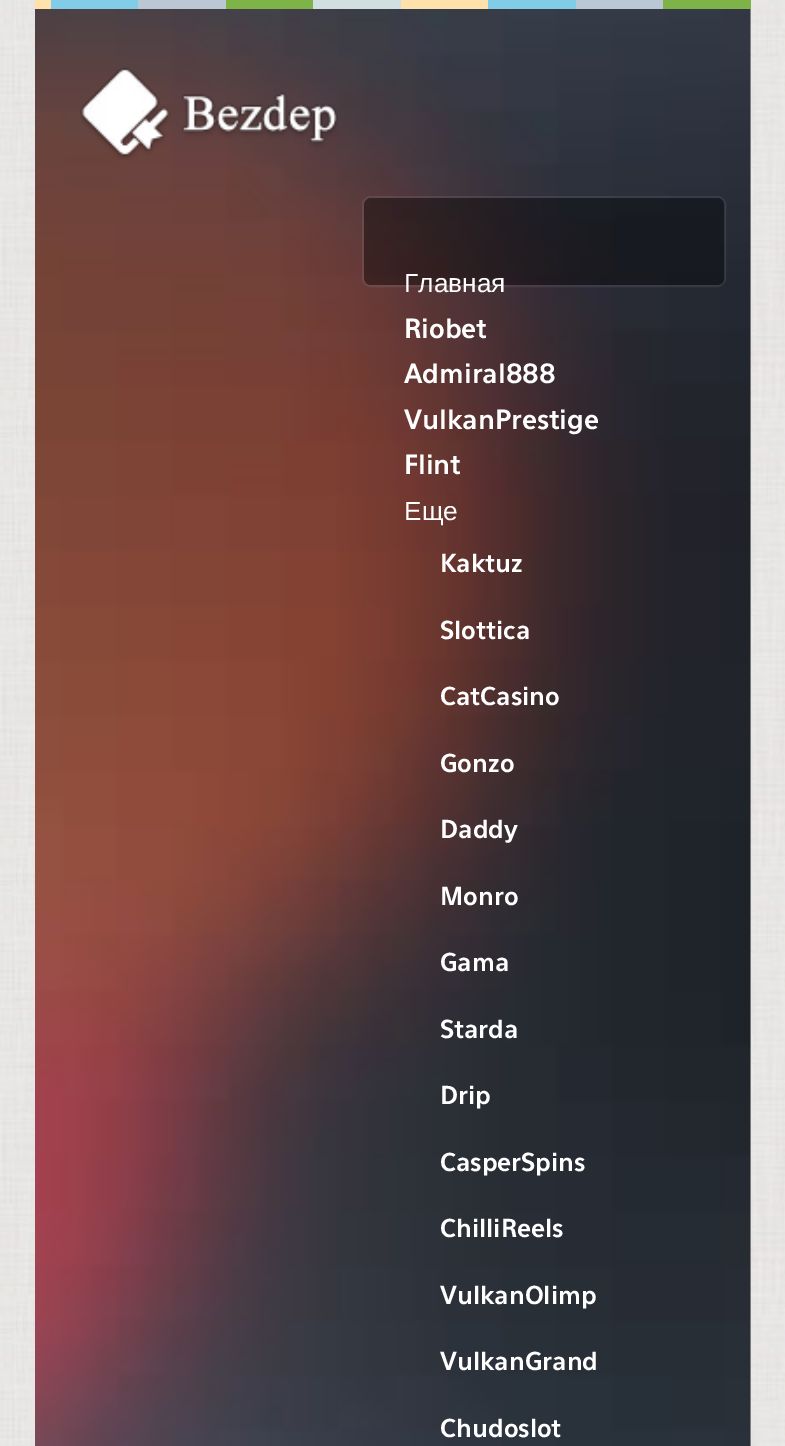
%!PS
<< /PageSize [785 1446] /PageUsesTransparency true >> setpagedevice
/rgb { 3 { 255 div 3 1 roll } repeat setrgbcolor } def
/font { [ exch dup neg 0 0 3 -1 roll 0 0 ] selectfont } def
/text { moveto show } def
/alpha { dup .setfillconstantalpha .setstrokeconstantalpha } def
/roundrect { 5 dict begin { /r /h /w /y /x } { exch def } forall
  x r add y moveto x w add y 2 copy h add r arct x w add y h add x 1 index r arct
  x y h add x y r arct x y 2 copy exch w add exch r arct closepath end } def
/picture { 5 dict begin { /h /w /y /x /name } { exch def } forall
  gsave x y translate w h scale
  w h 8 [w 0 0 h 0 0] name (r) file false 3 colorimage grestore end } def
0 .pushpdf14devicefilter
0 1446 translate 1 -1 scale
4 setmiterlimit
255 255 255 rgb
0 0 785 1446 rectfill
(img_01.rgb) 0 0 785 1446 picture
(img_02.rgb) 35 9 716 1437 picture
126 179 71 rgb
663 0 88 9 rectfill
188 199 214 rgb
576 0 87 9 rectfill
129 205 231 rgb
488 0 88 9 rectfill
255 226 171 rgb
401 0 87 9 rectfill
209 223 224 rgb
313 0 88 9 rectfill
126 179 71 rgb
226 0 87 9 rectfill
188 199 214 rgb
138 0 88 9 rectfill
129 205 231 rgb
51 0 87 9 rectfill
255 226 171 rgb
35 0 16 9 rectfill
(img_03.rgb) 80 68 258 92 picture
0.08 alpha
255 255 255 rgb
2 setlinewidth
363 197 362 89 8 roundrect stroke
1 alpha
(img_04.rgb) 364 198 361 87 picture
/LiberationSans-Regular 26.25 font
(Главная) 404 292 text
/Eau-Bold 26.25 font
(Riobet) 404 338 text
(Admiral888) 404 383 text
(VulkanPrestige) 404 429 text
(Flint) 404 474 text
/LiberationSans-Regular 26.25 font
(Еще) 404 520 text
/Eau-Bold 24.5 font
(Kaktuz) 440 572 text
(Slottica) 440 639 text
(CatCasino) 440 705 text
(Gonzo) 440 772 text
(Daddy) 440 838 text
(Monro) 440 905 text
(Gama) 440 971 text
(Starda) 440 1038 text
(Drip) 440 1104 text
(CasperSpins) 440 1171 text
(ChilliReels) 440 1237 text
(VulkanOlimp) 440 1304 text
(VulkanGrand) 440 1370 text
(Chudoslot) 440 1437 text
.poppdf14devicefilter showpage
